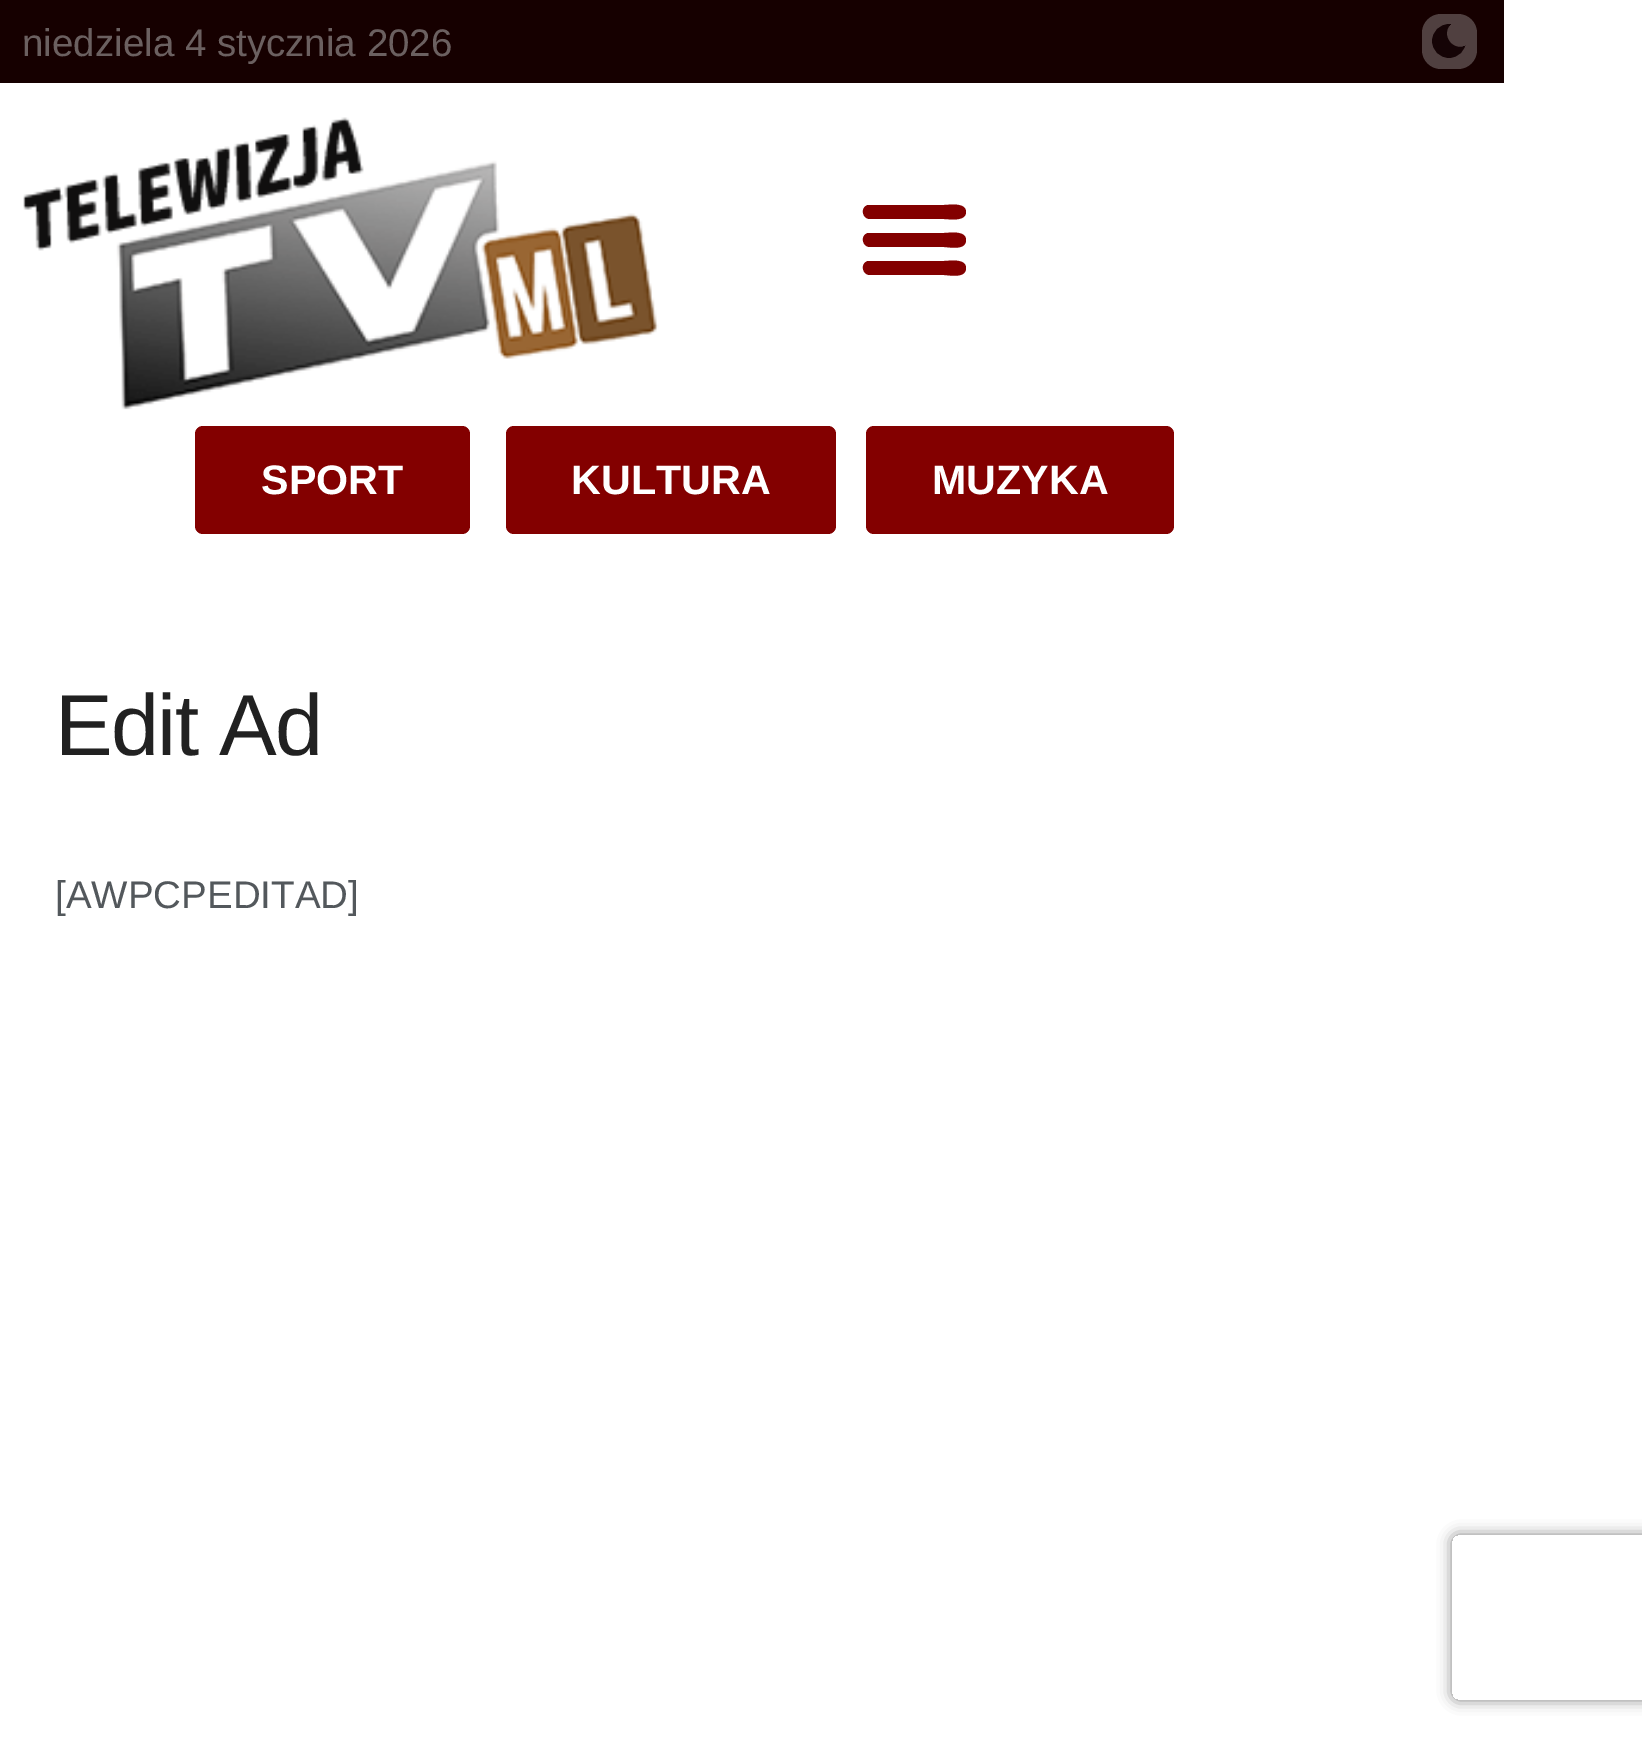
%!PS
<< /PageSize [1642 1738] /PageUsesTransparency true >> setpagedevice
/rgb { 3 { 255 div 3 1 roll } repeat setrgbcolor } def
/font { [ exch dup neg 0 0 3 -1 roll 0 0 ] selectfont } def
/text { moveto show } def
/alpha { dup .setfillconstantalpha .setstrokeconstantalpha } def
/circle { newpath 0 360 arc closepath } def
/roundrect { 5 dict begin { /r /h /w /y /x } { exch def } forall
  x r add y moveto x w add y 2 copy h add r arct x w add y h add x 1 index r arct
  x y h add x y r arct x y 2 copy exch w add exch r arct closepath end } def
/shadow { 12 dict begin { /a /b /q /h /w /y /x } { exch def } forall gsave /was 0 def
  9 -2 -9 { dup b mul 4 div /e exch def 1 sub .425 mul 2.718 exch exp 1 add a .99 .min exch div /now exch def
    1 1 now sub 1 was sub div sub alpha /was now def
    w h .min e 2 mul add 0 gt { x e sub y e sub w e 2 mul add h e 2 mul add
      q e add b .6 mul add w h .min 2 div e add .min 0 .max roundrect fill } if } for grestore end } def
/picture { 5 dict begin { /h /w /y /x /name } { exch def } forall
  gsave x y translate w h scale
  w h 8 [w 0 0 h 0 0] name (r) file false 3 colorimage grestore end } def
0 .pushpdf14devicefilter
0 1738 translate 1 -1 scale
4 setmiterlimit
255 255 255 rgb
0 0 1642 1738 rectfill
22 0 0 rgb
0 0 1504 83 rectfill
80 64 64 rgb
1422 14 55 55 19 roundrect fill
21 4 6 rgb
1449 25 moveto 1 0 rlineto -8.5 10 1.5 25 14 21.5 rcurveto -2.5 6 -8 10.5 -15 10.5 rcurveto -9 0 -16 -7 -16 -16 rcurveto 0 -9 7 -16 16 -16 rcurveto closepath fill
gsave
1401 22.5 moveto 51.5 0 rlineto -6 4 -7.5 12.5 -3.5 18.5 rcurveto 4.5 6.5 13 8 19 3.5 rcurveto 0 41.5 rlineto -67 0 rlineto closepath clip newpath
1.7 setlinewidth
1449 41 16 circle stroke
grestore
(img_01.rgb) 23 117 636 293 picture
131 0 0 rgb
870 219 moveto 74 0 rlineto 5 0 22 3 22 -7 rcurveto 0 -10 -17 -7 -22 -7 rcurveto -76 0 rlineto -8 2 -6 14 2 14 rcurveto closepath 870 247 moveto 74 0 rlineto 5 0 22 4 22 -7 rcurveto 0 -10 -17 -7 -22 -7 rcurveto -76 0 rlineto -8 2 -6 14 2 14 rcurveto closepath 870 275 moveto 74 0 rlineto 5 0 22 4 22 -7 rcurveto 0 -10 -17 -7 -22 -7 rcurveto -76 0 rlineto -8 2 -6 14 2 14 rcurveto closepath fill
195 426 275 108 8 roundrect fill
506 426 330 108 8 roundrect fill
866 426 308 108 8 roundrect fill
gsave
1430 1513 moveto 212 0 rlineto 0 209 rlineto -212 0 rlineto closepath 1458 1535 moveto 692 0 rlineto 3.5 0 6 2.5 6 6 rcurveto 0 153 rlineto 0 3.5 -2.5 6 -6 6 rcurveto -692 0 rlineto -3.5 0 -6 -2.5 -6 -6 rcurveto 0 -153 rlineto 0 -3.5 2.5 -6 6 -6 rcurveto closepath eoclip newpath
128 128 128 rgb
1452 1535 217 165 6 7 1 shadow
grestore
/LiberationSans-Regular 38.5 font
107 96 96 rgb
(niedziela 4 stycznia 2026) 22 56 text
/LiberationSans-Bold 41.25 font
255 255 255 rgb
(SPORT) 261 494 text
(KULTURA) 571 494 text
(MUZYKA) 932 494 text
/LiberationSans-Regular 86.5 font
33 33 33 rgb
55 755 moveto -1.75 0 (Edit Ad) ashow
/LiberationSans-Regular 38.5 font
83 88 92 rgb
([AWPCPEDITAD]) 55 908 text
.poppdf14devicefilter showpage
